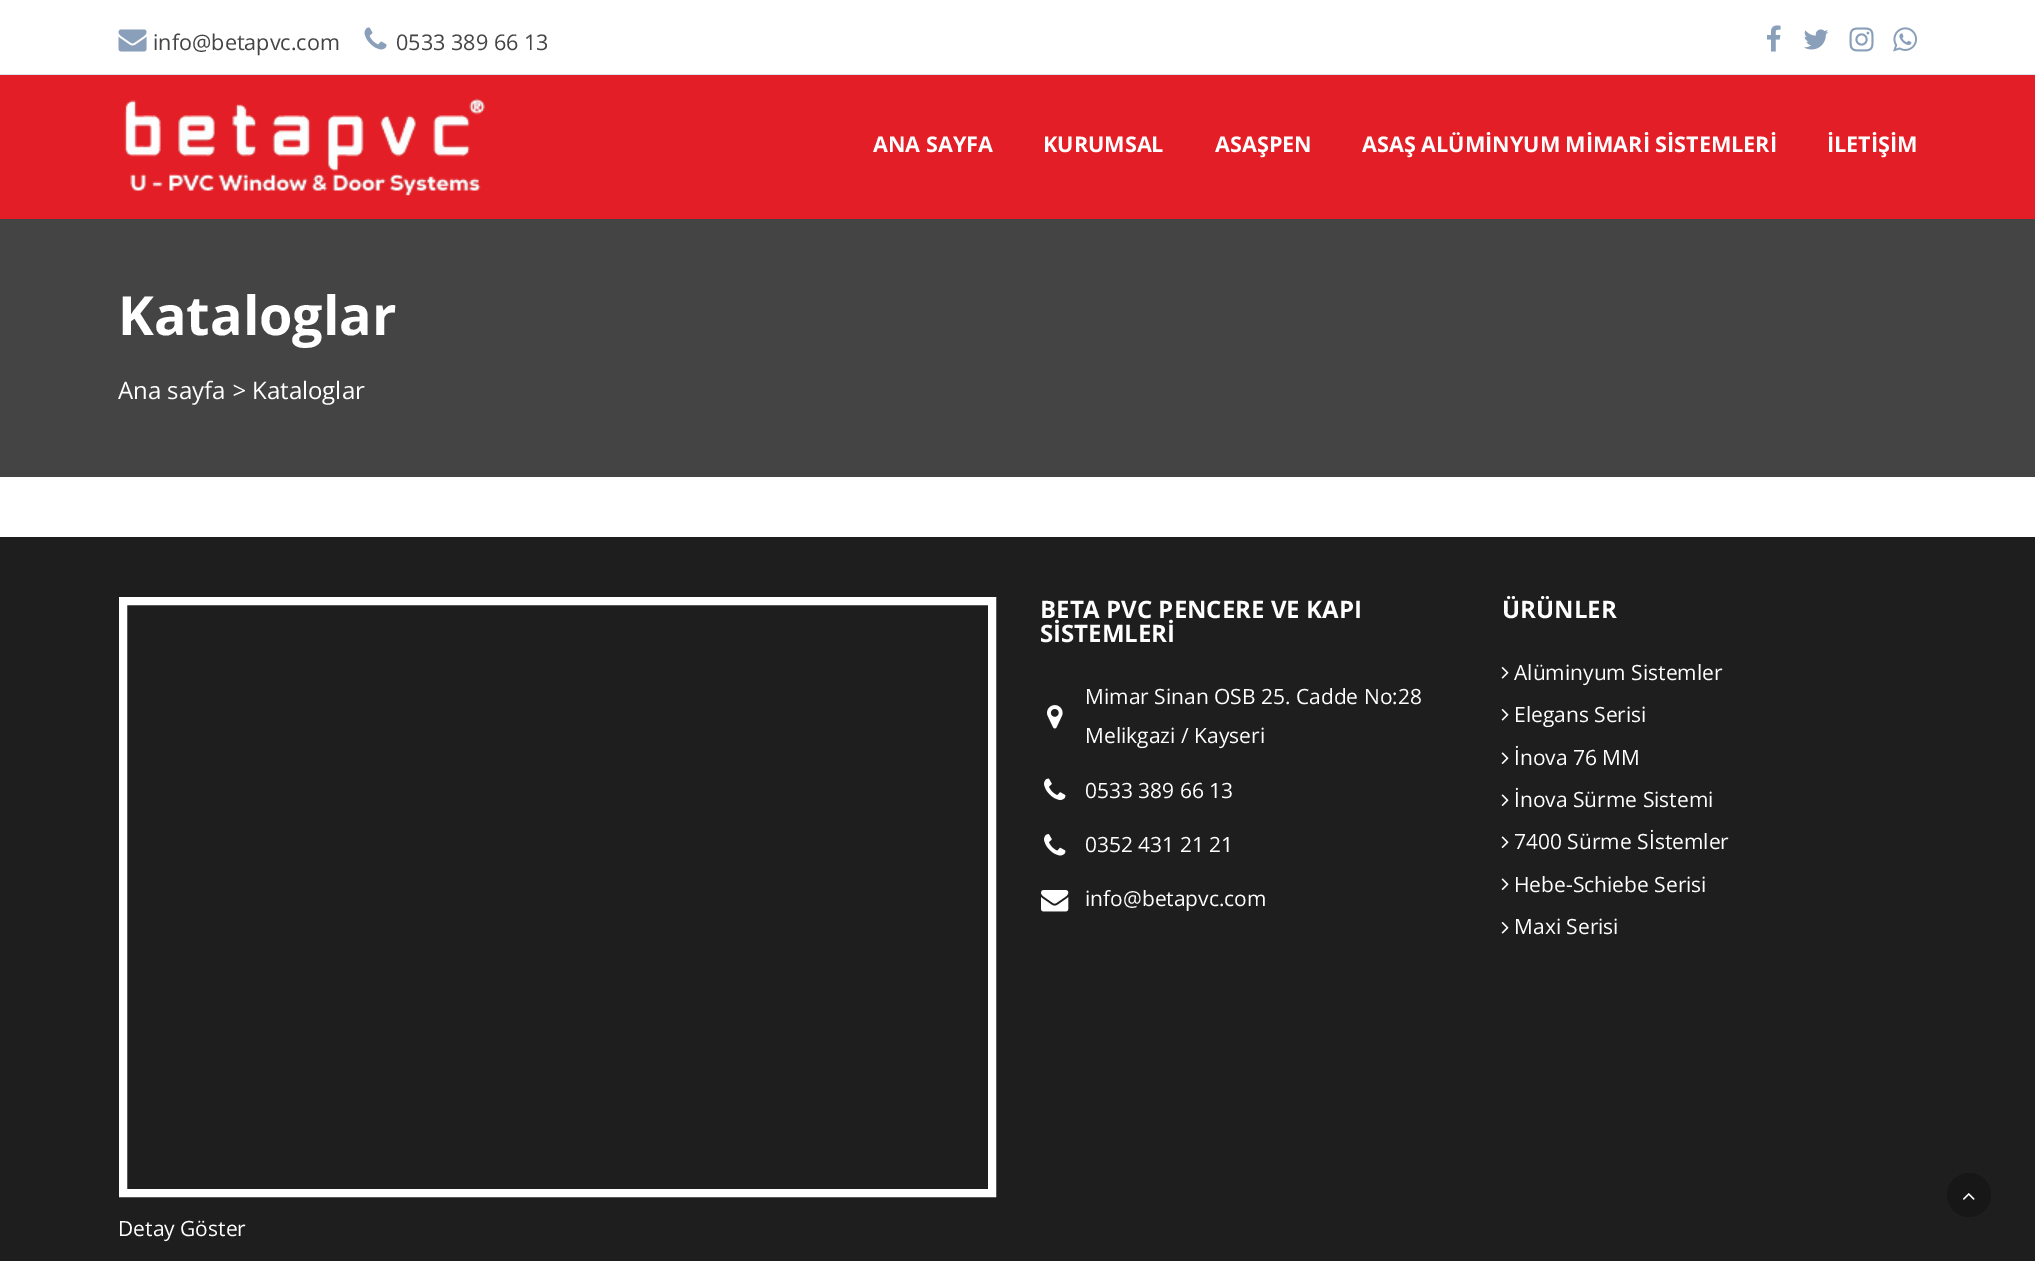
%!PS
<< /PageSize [2035 1261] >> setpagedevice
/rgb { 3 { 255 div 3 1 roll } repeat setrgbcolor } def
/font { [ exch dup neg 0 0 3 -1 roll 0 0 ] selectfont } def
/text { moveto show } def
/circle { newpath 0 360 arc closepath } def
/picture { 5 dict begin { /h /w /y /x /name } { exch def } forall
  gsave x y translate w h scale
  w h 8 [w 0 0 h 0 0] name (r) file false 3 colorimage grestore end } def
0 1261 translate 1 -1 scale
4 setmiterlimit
255 255 255 rgb
0 0 2035 1261 rectfill
220 227 239 rgb
0 74 2035 1 rectfill
(img_01.rgb) 118 29 29 23 picture
(img_02.rgb) 364 27 23 23 picture
(img_03.rgb) 1767 25 14 27 picture
(img_04.rgb) 1804 29 25 21 picture
(img_05.rgb) 1849 27 25 25 picture
(img_06.rgb) 1893 27 25 25 picture
228 30 38 rgb
0 75 2035 144 rectfill
(img_07.rgb) 124 98 361 98 picture
68 68 68 rgb
0 219 2035 258 rectfill
30 30 30 rgb
0 537 2035 724 rectfill
(img_08.rgb) 1047 705 16 24 picture
(img_09.rgb) 1044 778 22 22 picture
(img_10.rgb) 1044 834 22 22 picture
(img_11.rgb) 1041 890 28 22 picture
(img_12.rgb) 1501 667 8 12 picture
(img_12.rgb) 1501 709 8 12 picture
(img_13.rgb) 1501 752 8 12 picture
(img_13.rgb) 1501 794 8 12 picture
(img_13.rgb) 1501 836 8 12 picture
(img_13.rgb) 1501 878 8 12 picture
(img_12.rgb) 1501 922 8 12 picture
255 255 255 rgb
8 setlinewidth
123 601 869 592 rectstroke
23 23 23 rgb
1969 1195 22 circle fill
(img_14.rgb) 1963 1193 12 7 picture
/OpenSans-Regular 21.6 font
68 68 68 rgb
(info@betapvc.com) 153 50 text
(0533 389 66 13) 396 50 text
/OpenSans-Bold 21.6 font
255 255 255 rgb
(ANA SAYFA) 873 152 text
(KURUMSAL) 1043 152 text
(ASAŞPEN) 1215 152 text
(ASAŞ ALÜMİNYUM MİMARİ SİSTEMLERİ) 1362 152 text
(İLETİŞİM) 1827 152 text
/OpenSans-Bold 54 font
(Kataloglar) 118 335 text
/OpenSans-Regular 24 font
(Ana sayfa) 118 399 text
/OpenSans-Italic 24 font
(>) 232 399 text
/OpenSans-Regular 24 font
(Kataloglar) 252 399 text
/OpenSans-Bold 24 font
(BETA PVC PENCERE VE KAPI) 1040 618 text
(SİSTEMLERİ) 1040 642 text
/OpenSans-Regular 21 font
(Mimar Sinan OSB 25. Cadde No:28) 1085 704 text
(Melikgazi / Kayseri) 1085 743 text
(0533 389 66 13) 1085 798 text
(0352 431 21 21) 1085 852 text
(info@betapvc.com) 1085 906 text
/OpenSans-Bold 24 font
(ÜRÜNLER) 1502 618 text
/OpenSans-Regular 21 font
(Alüminyum Sistemler) 1514 680 text
(Elegans Serisi) 1514 722 text
(İnova 76 MM) 1514 765 text
(İnova Sürme Sistemi) 1514 807 text
(7400 Sürme Sİstemler) 1514 849 text
(Hebe-Schiebe Serisi) 1514 892 text
(Maxi Serisi) 1514 934 text
(Detay Göster) 118 1236 text
showpage
